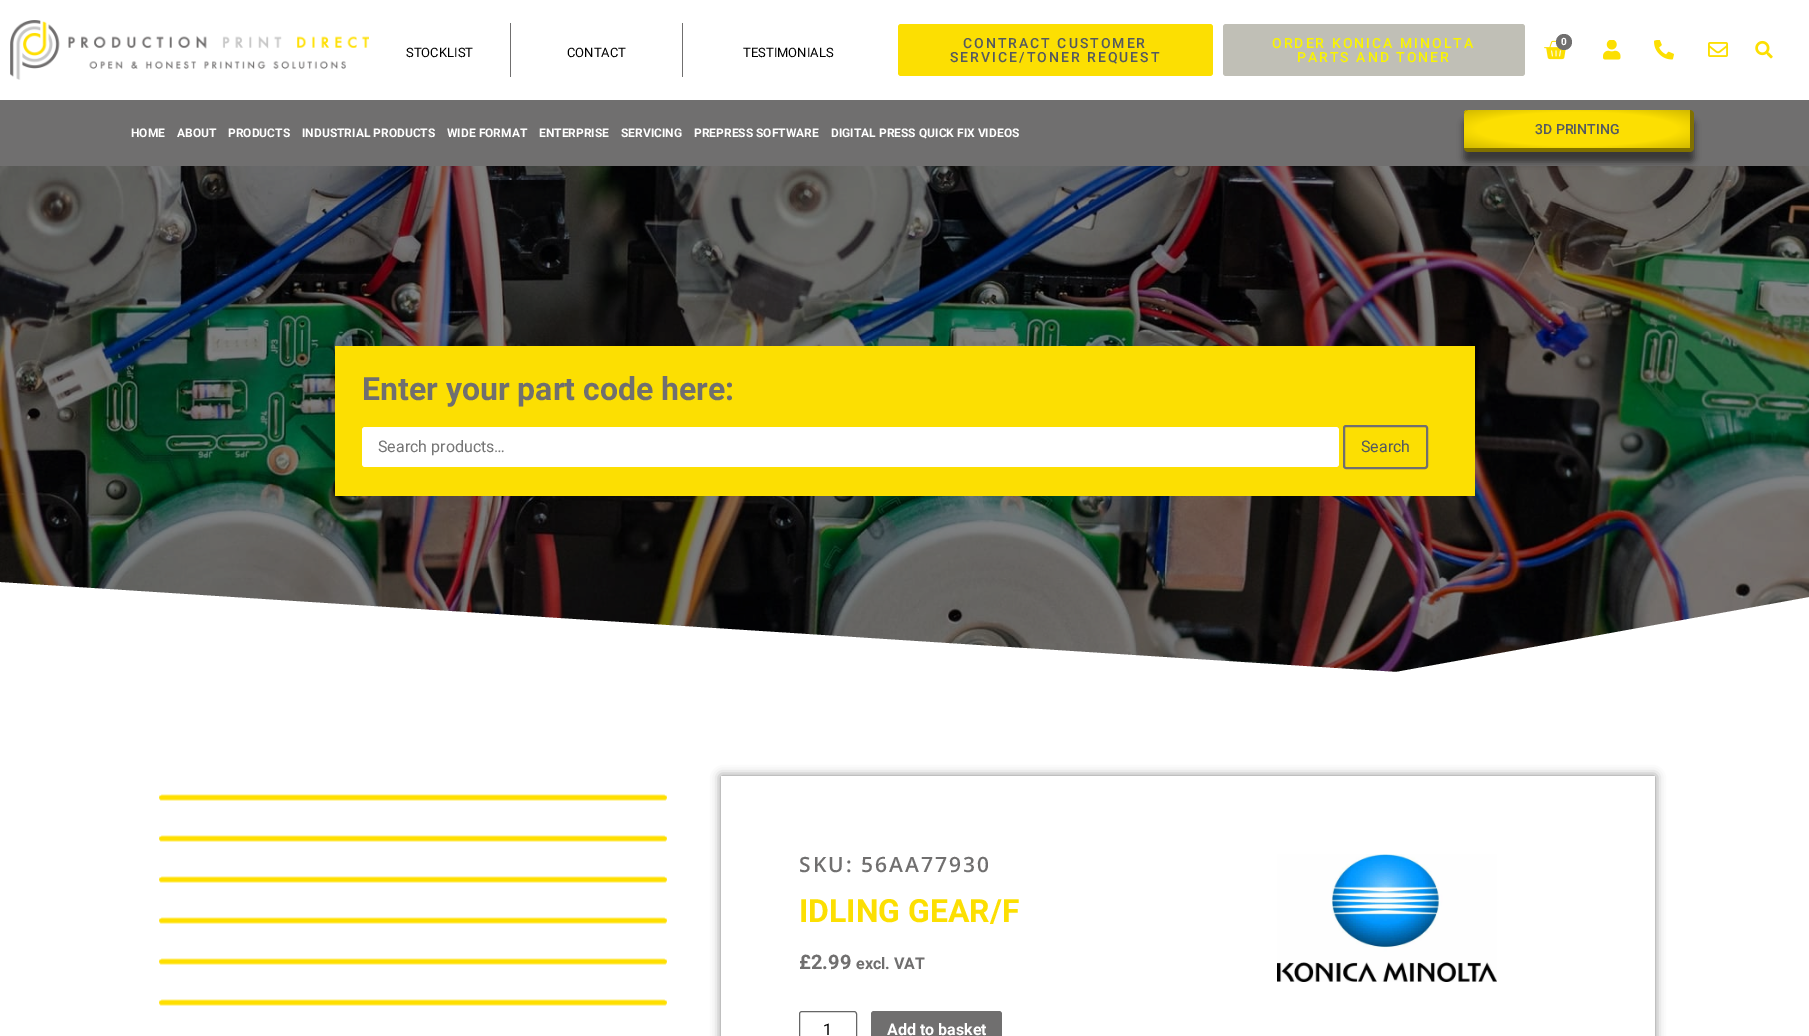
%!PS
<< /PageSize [1809 1036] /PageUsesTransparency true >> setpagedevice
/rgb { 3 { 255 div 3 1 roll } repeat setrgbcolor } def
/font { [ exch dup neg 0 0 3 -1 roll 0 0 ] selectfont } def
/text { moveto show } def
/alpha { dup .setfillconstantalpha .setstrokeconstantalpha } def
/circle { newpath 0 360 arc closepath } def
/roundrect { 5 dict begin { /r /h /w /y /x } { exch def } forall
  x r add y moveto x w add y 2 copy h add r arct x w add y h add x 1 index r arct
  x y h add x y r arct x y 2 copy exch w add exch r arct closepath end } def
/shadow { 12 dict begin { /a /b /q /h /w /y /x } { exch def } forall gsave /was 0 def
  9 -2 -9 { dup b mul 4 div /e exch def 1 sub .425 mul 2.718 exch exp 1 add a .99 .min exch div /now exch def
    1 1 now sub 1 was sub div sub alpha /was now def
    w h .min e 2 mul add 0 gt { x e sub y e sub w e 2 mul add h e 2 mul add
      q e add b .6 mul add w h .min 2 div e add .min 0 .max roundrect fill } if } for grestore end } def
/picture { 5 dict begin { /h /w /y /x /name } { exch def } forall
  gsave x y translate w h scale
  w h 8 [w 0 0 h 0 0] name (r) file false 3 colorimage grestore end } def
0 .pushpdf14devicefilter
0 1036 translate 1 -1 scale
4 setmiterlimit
255 255 255 rgb
0 0 1809 1036 rectfill
(img_01.rgb) 10 20 359 60 picture
252 223 2 rgb
898 24 315 52 3 roundrect fill
192 191 182 rgb
1223 24 302 52 3 roundrect fill
(img_02.rgb) 1544 40 24 20 picture
112 111 111 rgb
1564 42 8 circle fill
(img_03.rgb) 1603 40 18 20 picture
(img_04.rgb) 1654 40 20 20 picture
(img_05.rgb) 1708 42 20 15 picture
(img_06.rgb) 1755 40 18 19 picture
510 23 1 54 rectfill
682 23 1 54 rectfill
0 100 1809 66 rectfill
(img_07.rgb) 0 166 1809 506 picture
0 0 0 rgb
1464 120 230 42 4 3.5 0.5 shadow
gsave 1468 110 moveto 222 0 rlineto 0 38 rlineto -226 0 rlineto 0 -34 rlineto 0 -2 2 -4 4 -4 rcurveto closepath clip newpath 1577 129 translate 160 27 scale
<< /ShadingType 3 /ColorSpace /DeviceRGB /Coords [0 0 0 0 0 1] /Extend [true true] /Function << /FunctionType 3 /Domain [0 1] /Functions [<< /FunctionType 2 /Domain [0 1] /C0 [0.988 0.875 0.008] /C1 [0.988 0.875 0.008] /N 1 >> << /FunctionType 2 /Domain [0 1] /C0 [0.988 0.875 0.008] /C1 [0.82 0.722 0] /N 1 >>] /Bounds [0.63] /Encode [0 1 0 1] >> >> shfill grestore
128 112 0 rgb
1468 110 moveto 222 0 rlineto 2 0 4 2 4 4 rcurveto 0 34 rlineto 0 2 -2 4 -4 4 rcurveto -222 0 rlineto -2 0 -4 -2 -4 -4 rcurveto 0 -34 rlineto 0 -2 2 -4 4 -4 rcurveto closepath 1468 110 moveto 222 0 rlineto 0 38 rlineto -226 0 rlineto 0 -34 rlineto 0 -2 2 -4 4 -4 rcurveto closepath eofill
252 223 2 rgb
335 346 1140 150 rectfill
255 255 255 rgb
362 427 977 40 3 roundrect fill
112 111 111 rgb
2 setlinewidth
1344 426 83 42 2 roundrect stroke
255 255 255 rgb
1396 672 moveto -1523 -98 rlineto 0 103 rlineto 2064 0 rlineto 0 -103 rlineto closepath fill
(img_08.rgb) 159 794 508 212 picture
gsave
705 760 moveto 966 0 rlineto 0 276 rlineto -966 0 rlineto closepath 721 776 moveto 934 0 rlineto 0 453 rlineto -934 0 rlineto closepath eoclip newpath
0 0 0 rgb
721 776 934 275 0 5 0.5 shadow
grestore
102 102 102 rgb
1 setlinewidth
799.5 1011.5 57 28 2.5 roundrect stroke
112 111 111 rgb
871 1011 131 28 3 roundrect fill
(img_09.rgb) 1277 854 220 128 picture
/Roboto-Medium 14 font
84 89 95 rgb
963 48 moveto 2 0 (CONTRACT CUSTOMER) ashow
950 62 moveto 2 0 (SERVICE/TONER REQUEST) ashow
250 244 0 rgb
1272 48 moveto 2 0 (ORDER KONICA MINOLTA) ashow
1297 62 moveto 2 0 (PARTS AND TONER) ashow
/Roboto-Bold 10 font
255 255 255 rgb
(0) 1561 45 text
/Roboto-Regular 13 font
0 0 0 rgb
(STOCKLIST) 406 57 text
(CONTACT) 567 57 text
(TESTIMONIALS) 743 57 text
/Roboto-Bold 12 font
255 255 255 rgb
(HOME) 131 137 text
(ABOUT) 177 137 text
(PRODUCTS) 228 137 text
(INDUSTRIAL PRODUCTS) 302 137 text
(WIDE FORMAT) 447 137 text
(ENTERPRISE) 539 137 text
(SERVICING) 621 137 text
(PREPRESS SOFTWARE) 694 137 text
(DIGITAL PRESS QUICK FIX VIDEOS) 831 137 text
/Roboto-Medium 14 font
84 89 95 rgb
(3D PRINTING) 1535 134 text
/Roboto-Bold 32 font
112 111 111 rgb
(Enter your part code here:) 362 400 text
/Roboto-Regular 16 font
117 117 117 rgb
(Search products…) 378 452 text
84 89 95 rgb
(Search) 1361 452 text
/OpenSans-SemiBold 21 font
112 111 111 rgb
799 872 moveto 2 0 (SKU: 56AA77930) ashow
/Roboto-Bold 32 font
252 223 2 rgb
(IDLING GEAR/F) 799 922 text
/Roboto-Bold 20 font
112 111 111 rgb
(£2.99) 799 969 text
/Roboto-Bold 16 font
(excl. VAT) 856 969 text
/Roboto-Regular 16 font
0 0 0 rgb
(1) 823 1035 text
/Roboto-Bold 16 font
255 255 255 rgb
(Add to basket) 887 1035 text
.poppdf14devicefilter showpage
